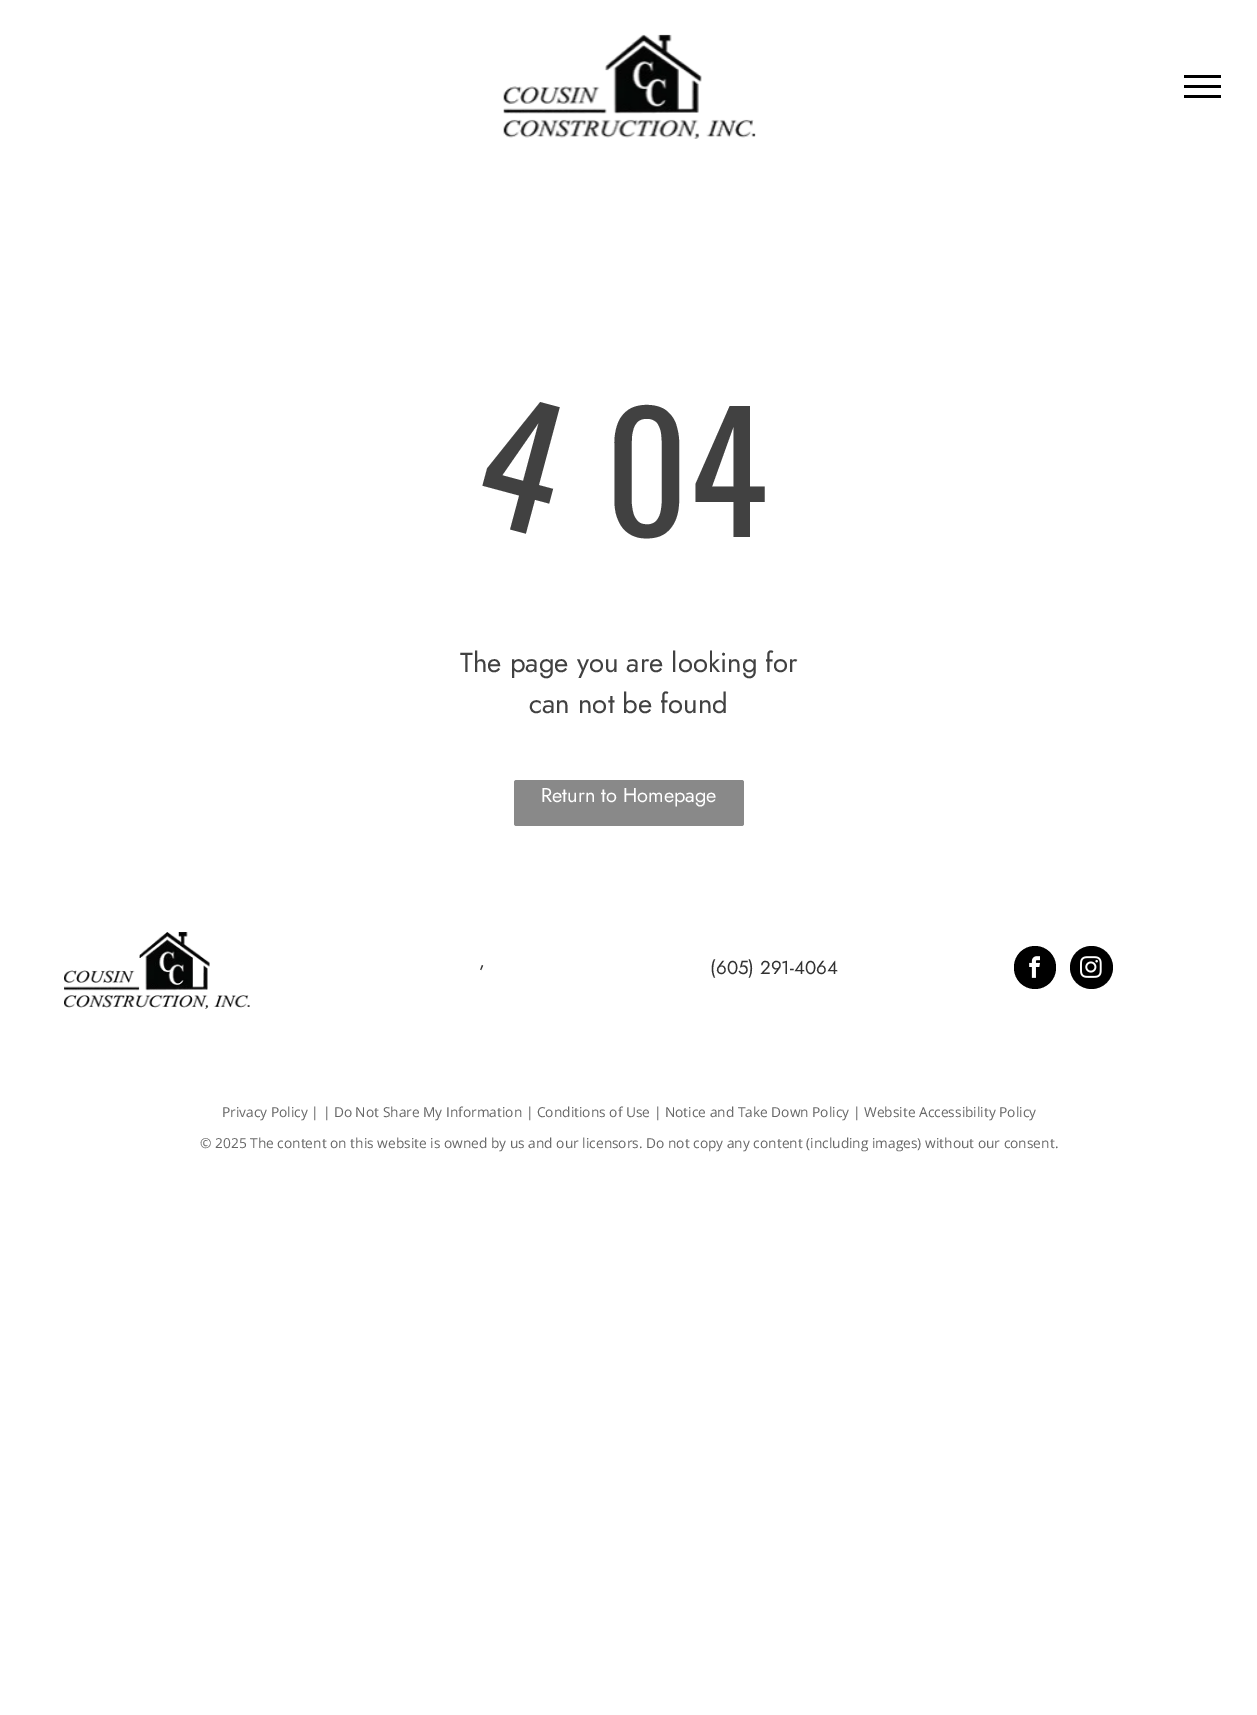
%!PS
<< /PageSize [1257 1715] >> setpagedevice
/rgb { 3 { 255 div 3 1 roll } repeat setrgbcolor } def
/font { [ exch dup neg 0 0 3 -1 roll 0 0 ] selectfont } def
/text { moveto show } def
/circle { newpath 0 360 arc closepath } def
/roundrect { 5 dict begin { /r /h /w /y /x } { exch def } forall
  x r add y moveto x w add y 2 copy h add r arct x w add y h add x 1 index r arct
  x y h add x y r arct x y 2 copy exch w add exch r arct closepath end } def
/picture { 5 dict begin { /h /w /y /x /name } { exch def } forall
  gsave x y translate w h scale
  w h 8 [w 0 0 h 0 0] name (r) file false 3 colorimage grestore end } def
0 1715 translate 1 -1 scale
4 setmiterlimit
255 255 255 rgb
0 0 1257 1715 rectfill
(img_01.rgb) 503 34 253 105 picture
0 0 0 rgb
1184 75 37 3 rectfill
1184 85 37 3 rectfill
1184 95 37 3 rectfill
137 137 137 rgb
514 780 230 46 2.5 roundrect fill
(img_02.rgb) 64 932 186 77 picture
0 0 0 rgb
1014 946 42 43 21 roundrect fill
(img_03.rgb) 1029 956 11 22 picture
1091.5 967.5 21.5 circle fill
(img_04.rgb) 1080 956 22 22 picture
/Oswald-Regular 162 font
65 65 65 rgb
gsave 467 518 translate 15 rotate 0 0 moveto (4) show grestore
(04) 605 537 text
/Jost-Regular 27.5 font
(The page you are looking for) 460 672 text
(can not be found) 529 713 text
/Jost-Regular 20 font
255 255 255 rgb
(Return to Homepage) 541 802 text
/Jost-Regular 18.75 font
50 50 50 rgb
(,) 479 967 text
(\(605\) 291-4064) 710 974 text
/OpenSans-Regular 13.75 font
102 102 102 rgb
(Privacy Policy | | Do Not Share My Information | Conditions of Use | Notice and Take Down Policy | Website Accessibility Policy) 222 1117 text
(© 2025 The content on this website is owned by us and our licensors. Do not copy any content \(including images\) without our consent.) 200 1148 text
showpage
